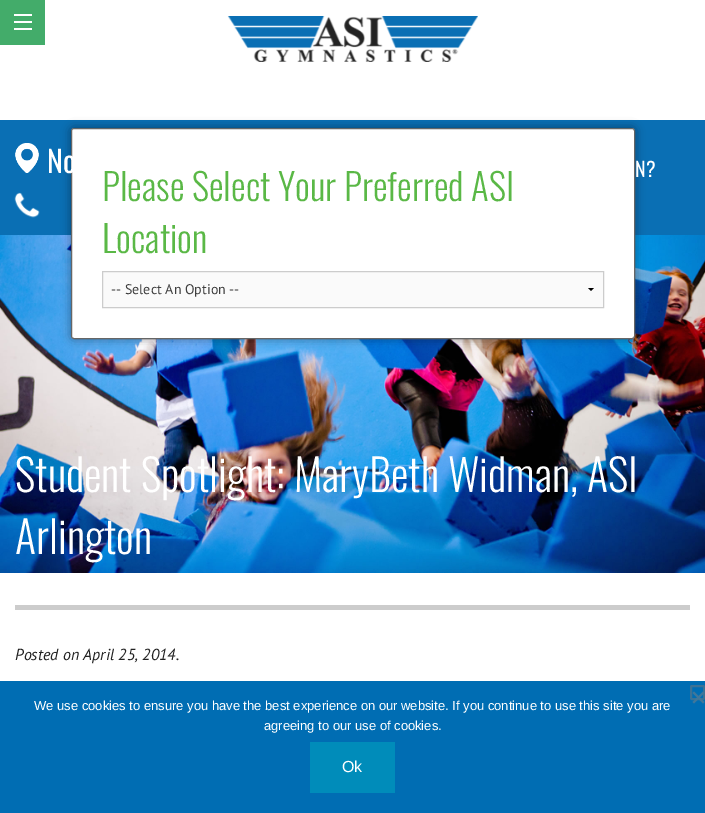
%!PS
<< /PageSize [705 813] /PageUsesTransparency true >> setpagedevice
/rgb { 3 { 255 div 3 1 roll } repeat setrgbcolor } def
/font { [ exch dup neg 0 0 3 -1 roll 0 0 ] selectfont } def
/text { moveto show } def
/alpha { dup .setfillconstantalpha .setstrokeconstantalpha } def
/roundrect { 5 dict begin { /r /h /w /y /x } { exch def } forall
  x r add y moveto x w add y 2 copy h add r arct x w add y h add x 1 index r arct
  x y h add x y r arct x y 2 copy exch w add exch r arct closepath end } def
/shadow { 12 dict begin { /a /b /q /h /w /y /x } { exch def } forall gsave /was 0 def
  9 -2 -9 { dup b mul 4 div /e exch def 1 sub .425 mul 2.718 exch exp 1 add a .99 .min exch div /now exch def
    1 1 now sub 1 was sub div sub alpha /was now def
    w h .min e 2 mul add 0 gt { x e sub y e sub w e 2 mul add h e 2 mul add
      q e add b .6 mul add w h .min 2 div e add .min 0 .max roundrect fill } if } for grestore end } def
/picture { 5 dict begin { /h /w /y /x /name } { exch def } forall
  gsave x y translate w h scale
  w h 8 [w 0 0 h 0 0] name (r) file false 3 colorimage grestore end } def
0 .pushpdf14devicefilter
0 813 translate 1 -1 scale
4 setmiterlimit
255 255 255 rgb
0 0 705 813 rectfill
67 172 106 rgb
0 0 45 45 rectfill
255 255 255 rgb
14 28 18 2 rectfill
14 21 18 2 rectfill
14 14 18 2 rectfill
(img_01.rgb) 227 16 251 46 picture
10 111 180 rgb
0 120 705 115 rectfill
(img_02.rgb) 15 143 24 30 picture
(img_03.rgb) 14 192 26 26 picture
(img_04.rgb) 0 235 705 338 picture
204 204 204 rgb
15 605 675 5 rectfill
0 0 0 rgb
71 128 564 211 3 5 0.4 shadow
255 255 255 rgb
71.5 128.5 563 210 2.5 roundrect gsave fill grestore
102 102 102 rgb
stroke
250 250 250 rgb
103 272 500 35 rectfill
0 0 0 rgb
594 288 moveto -3 3 rlineto -3 -3 rlineto closepath fill
204 204 204 rgb
102.5 271.5 501 36 rectstroke
0 109 179 rgb
0 681 705 132 rectfill
60 114 149 rgb
2 setlinewidth
691 686 13 13 1 roundrect stroke
64 119 154 rgb
703 691.5 moveto 1.5 1.5 rlineto -10.5 10.5 rlineto -1.5 -1.5 rlineto closepath fill
692.5 693 moveto 1.5 -1.5 rlineto 10.5 10.5 rlineto -1.5 1.5 rlineto closepath fill
0 140 186 rgb
310 742 85 51 rectfill
/Oswald-Regular 30 font
255 255 255 rgb
(No) 47 173 text
/Oswald-Regular 20 font
(N?) 635 177 text
/Oswald-Light 44 font
(Student Spotlight: MaryBeth Widman, ASI) 15 492 text
(Arlington) 15 554 text
/PTSans-Italic 16 font
34 34 34 rgb
(Posted on April 25, 2014.) 15 660 text
/Oswald-Light 37 font
90 184 70 rgb
(Please Select Your Preferred ASI) 102 201 text
(Location) 102 253 text
/PTSans-Regular 14 font
63 63 63 rgb
(-- Select An Option --) 111 294 text
/LiberationSans-Regular 13 font
255 255 255 rgb
(We use cookies to ensure you have the best experience on our website. If you continue to use this site you are) 34 710 text
(agreeing to our use of cookies.) 264 730 text
/LiberationSans-Regular 16 font
(Ok) 342 772 text
.poppdf14devicefilter showpage
